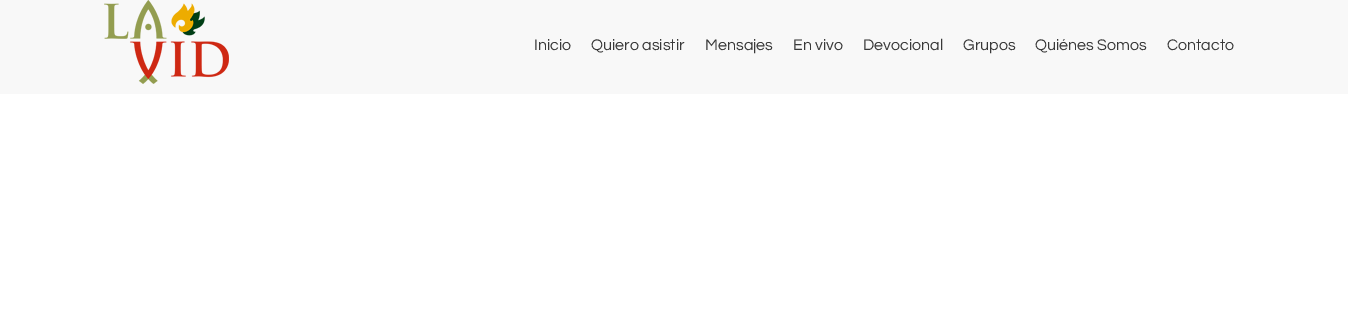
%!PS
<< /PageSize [1348 316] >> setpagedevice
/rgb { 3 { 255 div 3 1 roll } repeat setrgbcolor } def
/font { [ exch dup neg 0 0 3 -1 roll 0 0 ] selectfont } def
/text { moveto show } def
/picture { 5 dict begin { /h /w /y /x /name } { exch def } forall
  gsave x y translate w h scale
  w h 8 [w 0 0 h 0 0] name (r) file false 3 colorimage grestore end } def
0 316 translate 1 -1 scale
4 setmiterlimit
255 255 255 rgb
0 0 1348 316 rectfill
248 248 248 rgb
0 0 1348 94 rectfill
(img_01.rgb) 104 0 125 84 picture
/Questrial-Regular 16 font
57 57 57 rgb
(Inicio) 534 50 text
(Quiero asistir) 591 50 text
(Mensajes) 705 50 text
(En vivo) 793 50 text
(Devocional) 863 50 text
(Grupos) 963 50 text
(Quiénes Somos) 1035 50 text
(Contacto) 1167 50 text
showpage
